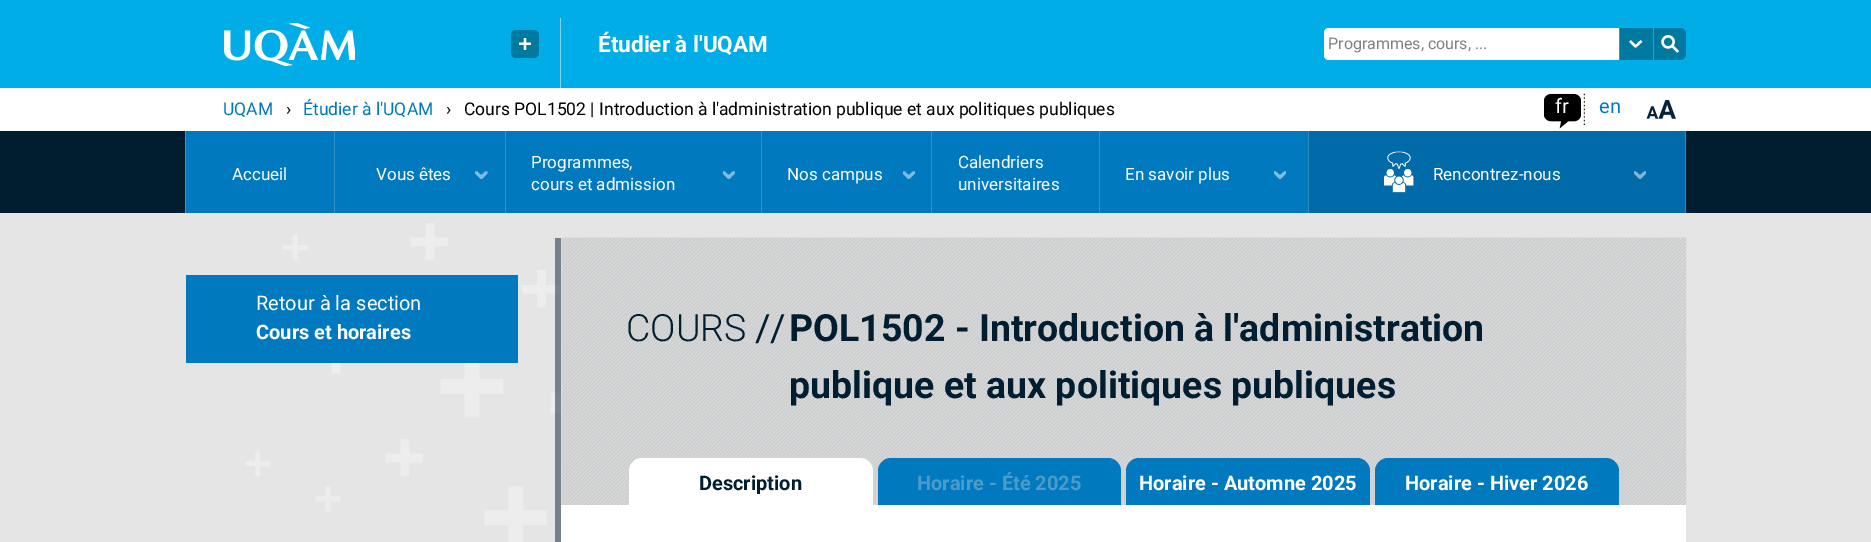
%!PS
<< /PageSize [1871 542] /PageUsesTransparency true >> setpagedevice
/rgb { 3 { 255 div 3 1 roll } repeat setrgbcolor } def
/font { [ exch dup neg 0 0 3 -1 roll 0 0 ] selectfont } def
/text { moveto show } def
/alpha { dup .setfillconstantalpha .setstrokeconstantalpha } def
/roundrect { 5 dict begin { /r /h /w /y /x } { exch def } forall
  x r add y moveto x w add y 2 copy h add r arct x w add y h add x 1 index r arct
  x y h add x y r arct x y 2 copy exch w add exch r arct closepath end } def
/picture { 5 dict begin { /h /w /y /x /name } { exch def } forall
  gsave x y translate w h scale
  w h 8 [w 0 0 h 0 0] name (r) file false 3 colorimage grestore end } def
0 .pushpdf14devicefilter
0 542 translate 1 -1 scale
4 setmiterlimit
229 229 229 rgb
0 0 1871 542 rectfill
0 173 230 rgb
0 0 1871 88 rectfill
(img_01.rgb) 224 23 131 43 picture
0 121 161 rgb
511 30 28 28 5 roundrect fill
(img_02.rgb) 519 38 12 12 picture
128 214 243 rgb
560 18 1 70 rectfill
255 255 255 rgb
1329 28 moveto 290 0 rlineto 0 32 rlineto -290 0 rlineto -3 0 -5 -2 -5 -5 rcurveto 0 -22 rlineto 0 -3 2 -5 5 -5 rcurveto closepath fill
0 121 161 rgb
1620 28 33 32 rectfill
255 255 255 rgb
2.3 setlinewidth
2 setlinejoin
1641.5 41 moveto -6 5.5 rlineto -5.5 -5.5 rlineto stroke
0 121 161 rgb
1654 28 moveto 26 0 rlineto 3.5 0 6 2.5 6 6 rcurveto 0 20 rlineto 0 3.5 -2.5 6 -6 6 rcurveto -26 0 rlineto closepath fill
(img_03.rgb) 1661 35 18 18 picture
255 255 255 rgb
0 88 1871 43 rectfill
(img_04.rgb) 1544 93 37 36 picture
(img_05.rgb) 1583 93 2 32 picture
(img_06.rgb) 1646 100 30 19 picture
1 30 48 rgb
0 131 1871 82 rectfill
0 121 190 rgb
186 131 148 82 rectfill
51 148 203 rgb
185 131 1 82 rectfill
0 121 190 rgb
335 131 170 82 rectfill
51 148 203 rgb
334 131 1 82 rectfill
(img_07.rgb) 475 171 13 8 picture
0 121 190 rgb
506 131 255 82 rectfill
51 148 203 rgb
505 131 1 82 rectfill
(img_08.rgb) 723 171 12 8 picture
0 121 190 rgb
762 131 169 82 rectfill
51 148 203 rgb
761 131 1 82 rectfill
(img_08.rgb) 903 171 12 8 picture
0 121 190 rgb
932 131 167 82 rectfill
51 148 203 rgb
931 131 1 82 rectfill
0 121 190 rgb
1100 131 208 82 rectfill
51 148 203 rgb
1099 131 1 82 rectfill
(img_09.rgb) 1274 171 12 8 picture
0 107 168 rgb
1309 131 376 82 rectfill
51 137 185 rgb
1685 131 1 82 rectfill
1308 131 1 82 rectfill
(img_10.rgb) 1384 151 30 42 picture
(img_11.rgb) 1634 171 12 8 picture
(img_12.rgb) 245 223 316 319 picture
0.5 alpha
0 30 48 rgb
555 238 6 304 rectfill
1 alpha
0 121 190 rgb
186 275 332 88 rectfill
255 255 255 rgb
561 238 1125 304 rectfill
(img_13.rgb) 561 237 1126 268 picture
642 458 moveto 218 0 rlineto 7 0 13 6 13 13 rcurveto 0 34 rlineto -244 0 rlineto 0 -34 rlineto 0 -7 6 -13 13 -13 rcurveto closepath fill
0 121 190 rgb
891 458 moveto 217 0 rlineto 7 0 13 6 13 13 rcurveto 0 34 rlineto -243 0 rlineto 0 -34 rlineto 0 -7 6 -13 13 -13 rcurveto closepath fill
1139 458 moveto 218 0 rlineto 7 0 13 6 13 13 rcurveto 0 34 rlineto -244 0 rlineto 0 -34 rlineto 0 -7 6 -13 13 -13 rcurveto closepath fill
1388 458 moveto 218 0 rlineto 7 0 13 6 13 13 rcurveto 0 34 rlineto -244 0 rlineto 0 -34 rlineto 0 -7 6 -13 13 -13 rcurveto closepath fill
/Roboto-Bold 22.5 font
255 255 255 rgb
(Étudier à l'UQAM) 598 52 text
/Roboto-Regular 16 font
129 129 129 rgb
(Programmes, cours, ...) 1328 49 text
/Roboto-Regular 17.5 font
0 121 190 rgb
(UQAM) 223 115 text
0 0 0 rgb
(›) 286 115 text
0 121 190 rgb
(Étudier à l'UQAM) 303 115 text
0 0 0 rgb
(›) 446 115 text
(Cours POL1502 | Introduction à l'administration publique et aux politiques publiques) 464 115 text
/Roboto-Regular 20 font
255 255 255 rgb
(fr) 1555 113 text
0 121 190 rgb
(en) 1599 113 text
/Roboto-Regular 17 font
255 255 255 rgb
(Accueil) 232 180 text
(Vous êtes) 376 180 text
(Programmes,) 531 168 text
(cours et admission) 531 190 text
(Nos campus) 787 180 text
(Calendriers) 958 168 text
(universitaires) 958 190 text
(En savoir plus) 1125 180 text
(Rencontrez-nous) 1433 180 text
/Roboto-Regular 20 font
(Retour à la section) 256 310 text
/Roboto-Bold 20 font
(Cours et horaires) 256 339 text
/Roboto-Light 37.5 font
0 30 48 rgb
(COURS) 626 341 text
/Roboto-Regular 37.5 font
(//) 755 341 text
/Roboto-Bold 37.5 font
(POL1502 - Introduction à l'administration) 789 341 text
(publique et aux politiques publiques) 789 398 text
/Roboto-Bold 20 font
(Description) 699 490 text
77 155 201 rgb
(Horaire - Été 2025) 917 490 text
255 255 255 rgb
(Horaire - Automne 2025) 1139 490 text
(Horaire - Hiver 2026) 1405 490 text
.poppdf14devicefilter showpage
